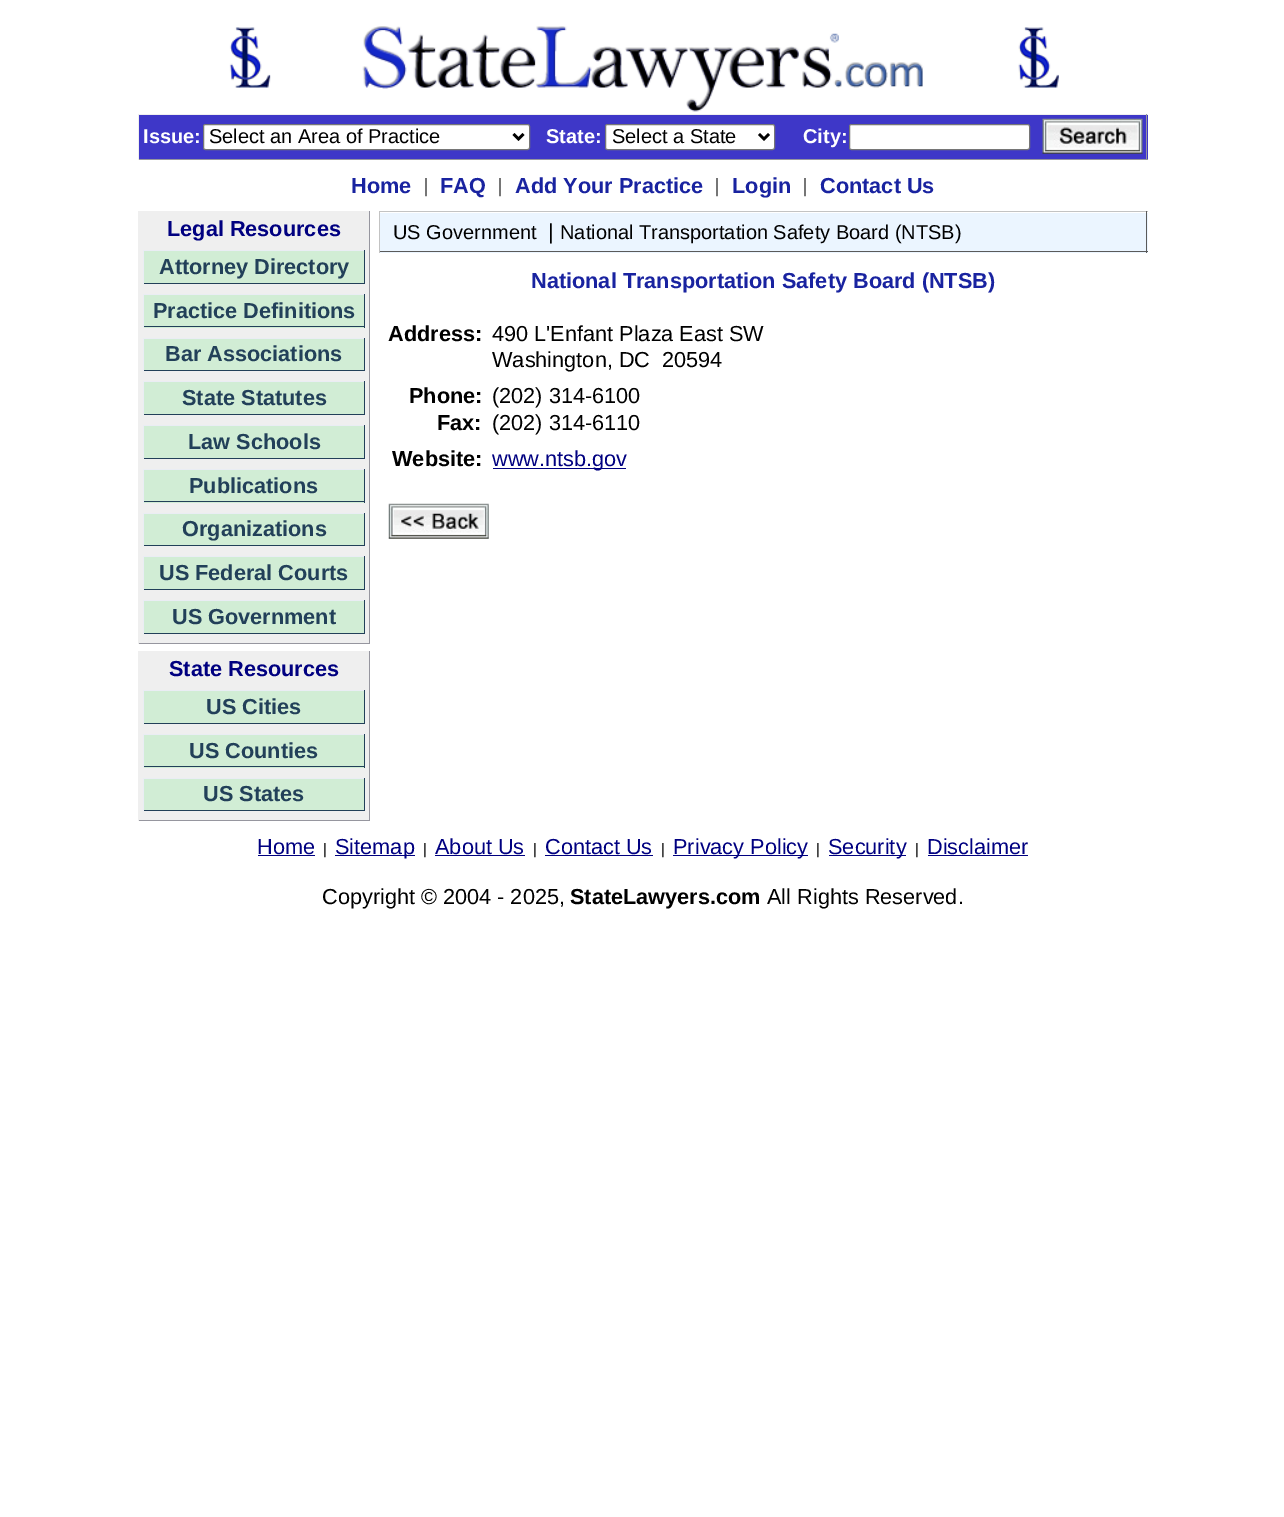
%!PS
<< /PageSize [1284 1517] >> setpagedevice
/rgb { 3 { 255 div 3 1 roll } repeat setrgbcolor } def
/font { [ exch dup neg 0 0 3 -1 roll 0 0 ] selectfont } def
/text { moveto show } def
/roundrect { 5 dict begin { /r /h /w /y /x } { exch def } forall
  x r add y moveto x w add y 2 copy h add r arct x w add y h add x 1 index r arct
  x y h add x y r arct x y 2 copy exch w add exch r arct closepath end } def
/picture { 5 dict begin { /h /w /y /x /name } { exch def } forall
  gsave x y translate w h scale
  w h 8 [w 0 0 h 0 0] name (r) file false 3 colorimage grestore end } def
0 1517 translate 1 -1 scale
4 setmiterlimit
255 255 255 rgb
0 0 1284 1517 rectfill
(img_01.rgb) 229 26 830 86 picture
62 55 200 rgb
139 115 1009 44 rectfill
239 239 239 rgb
138 114 1010 1 rectfill
150 150 159 rgb
1146 114 1 46 rectfill
138 159 1010 1 rectfill
239 239 239 rgb
138 114 1 46 rectfill
255 255 255 rgb
203.5 124.5 326 25 2 roundrect gsave fill grestore
118 118 118 rgb
stroke
0 0 0 rgb
2.5 setlinewidth
513.5 134 moveto 5 5 rlineto 5 -5 rlineto stroke
255 255 255 rgb
605.5 124.5 169 25 2 roundrect gsave fill grestore
118 118 118 rgb
1 setlinewidth
stroke
0 0 0 rgb
2.5 setlinewidth
759 134 moveto 5 5 rlineto 5 -5 rlineto stroke
255 255 255 rgb
849.5 124.5 180 25 2 roundrect gsave fill grestore
118 118 118 rgb
1 setlinewidth
stroke
(img_02.rgb) 1042 118 101 36 picture
239 239 239 rgb
139 211 230 432 rectfill
150 150 159 rgb
369 211 1 433 rectfill
138 643 232 1 rectfill
239 239 239 rgb
138 211 1 433 rectfill
209 237 213 rgb
144 251 220 32 rectfill
234 237 244 rgb
143 250 222 1 rectfill
34 64 89 rgb
364 250 1 34 rectfill
143 283 222 1 rectfill
234 237 244 rgb
143 250 1 34 rectfill
209 237 213 rgb
144 295 220 33 rectfill
234 237 244 rgb
143 294 222 1 rectfill
34 64 89 rgb
364 294 1 34 rectfill
143 326 222 1 rectfill
234 237 244 rgb
143 294 1 34 rectfill
209 237 213 rgb
144 339 220 31 rectfill
234 237 244 rgb
143 338 222 1 rectfill
34 64 89 rgb
364 338 1 33 rectfill
143 370 222 1 rectfill
234 237 244 rgb
143 338 1 33 rectfill
209 237 213 rgb
144 382 220 32 rectfill
234 237 244 rgb
143 381 222 1 rectfill
34 64 89 rgb
364 381 1 34 rectfill
143 414 222 1 rectfill
234 237 244 rgb
143 381 1 34 rectfill
209 237 213 rgb
144 426 220 32 rectfill
234 237 244 rgb
143 425 222 1 rectfill
34 64 89 rgb
364 425 1 34 rectfill
143 458 222 1 rectfill
234 237 244 rgb
143 425 1 34 rectfill
209 237 213 rgb
144 470 220 33 rectfill
234 237 244 rgb
143 469 222 1 rectfill
34 64 89 rgb
364 469 1 34 rectfill
143 501 222 1 rectfill
234 237 244 rgb
143 469 1 34 rectfill
209 237 213 rgb
144 514 220 31 rectfill
234 237 244 rgb
143 513 222 1 rectfill
34 64 89 rgb
364 513 1 33 rectfill
143 545 222 1 rectfill
234 237 244 rgb
143 513 1 33 rectfill
209 237 213 rgb
144 557 220 32 rectfill
234 237 244 rgb
143 556 222 1 rectfill
34 64 89 rgb
364 556 1 34 rectfill
143 589 222 1 rectfill
234 237 244 rgb
143 556 1 34 rectfill
209 237 213 rgb
144 601 220 32 rectfill
234 237 244 rgb
143 600 222 1 rectfill
34 64 89 rgb
364 600 1 34 rectfill
143 633 222 1 rectfill
234 237 244 rgb
143 600 1 34 rectfill
239 239 239 rgb
139 651 230 169 rectfill
150 150 159 rgb
369 651 1 170 rectfill
138 820 232 1 rectfill
239 239 239 rgb
138 651 1 170 rectfill
209 237 213 rgb
144 691 220 32 rectfill
234 237 244 rgb
143 690 222 1 rectfill
34 64 89 rgb
364 690 1 34 rectfill
143 723 222 1 rectfill
234 237 244 rgb
143 690 1 34 rectfill
209 237 213 rgb
144 735 220 33 rectfill
234 237 244 rgb
143 734 222 1 rectfill
34 64 89 rgb
364 734 1 34 rectfill
143 766 222 1 rectfill
234 237 244 rgb
143 734 1 34 rectfill
209 237 213 rgb
144 779 220 31 rectfill
234 237 244 rgb
143 778 222 1 rectfill
34 64 89 rgb
364 778 1 33 rectfill
143 810 222 1 rectfill
234 237 244 rgb
143 778 1 33 rectfill
235 245 255 rgb
380 213 768 40 rectfill
195 195 195 rgb
379 211 769 1 rectfill
90 90 90 rgb
1146 211 1 42 rectfill
379 251 769 1 rectfill
195 195 195 rgb
379 211 1 42 rectfill
0 0 128 rgb
493 468 133 1 rectfill
(img_03.rgb) 388 503 101 36 picture
258 855 57 1 rectfill
335 855 80 1 rectfill
435 855 90 1 rectfill
545 855 108 1 rectfill
673 855 135 1 rectfill
829 855 77 1 rectfill
928 855 100 1 rectfill
/LiberationSans-Bold 20 font
255 255 255 rgb
(Issue:) 143 143 text
/LiberationSans-Regular 20 font
0 0 0 rgb
(Select an Area of Practice) 209 143 text
/LiberationSans-Bold 20 font
255 255 255 rgb
(State:) 546 143 text
/LiberationSans-Regular 20 font
0 0 0 rgb
(Select a State) 612 143 text
/LiberationSans-Bold 20 font
255 255 255 rgb
(City:) 803 143 text
/LiberationSans-Bold 21.7 font
25 35 160 rgb
(Home) 351 193 text
/LiberationSerif-Regular 20 font
0 0 0 rgb
(|) 424 192 text
/LiberationSans-Bold 21.7 font
25 35 160 rgb
(FAQ) 440 193 text
/LiberationSerif-Regular 20 font
0 0 0 rgb
(|) 498 192 text
/LiberationSans-Bold 21.7 font
25 35 160 rgb
(Add Your Practice) 515 193 text
/LiberationSerif-Regular 20 font
0 0 0 rgb
(|) 715 192 text
/LiberationSans-Bold 21.7 font
25 35 160 rgb
(Login) 732 193 text
/LiberationSerif-Regular 20 font
0 0 0 rgb
(|) 803 192 text
/LiberationSans-Bold 21.7 font
25 35 160 rgb
(Contact Us) 820 193 text
0 0 128 rgb
(Legal Resources) 167 236 text
34 64 89 rgb
(Attorney Directory) 159 274 text
(Practice Definitions) 153 318 text
(Bar Associations) 165 361 text
(State Statutes) 182 405 text
(Law Schools) 188 449 text
(Publications) 189 493 text
(Organizations) 182 536 text
(US Federal Courts) 159 580 text
(US Government) 172 624 text
0 0 128 rgb
(State Resources) 169 676 text
34 64 89 rgb
(US Cities) 206 714 text
(US Counties) 189 758 text
(US States) 203 801 text
/LiberationSans-Regular 20 font
0 0 0 rgb
(US Government) 393 239 text
/LiberationSans-Regular 21.7 font
(|) 548 239 text
/LiberationSans-Regular 20 font
(National Transportation Safety Board \(NTSB\)) 560 239 text
/LiberationSans-Bold 21.7 font
25 35 160 rgb
(National Transportation Safety Board \(NTSB\)) 531 288 text
0 0 0 rgb
(Address:) 388 341 text
/LiberationSans-Regular 21.7 font
(490 L'Enfant Plaza East SW) 492 341 text
(Washington, DC  20594) 492 367 text
/LiberationSans-Bold 21.7 font
(Phone:) 409 403 text
/LiberationSans-Regular 21.7 font
(\(202\) 314-6100) 492 403 text
/LiberationSans-Bold 21.7 font
(Fax:) 437 430 text
/LiberationSans-Regular 21.7 font
(\(202\) 314-6110) 492 430 text
/LiberationSans-Bold 21.7 font
(Website:) 392 466 text
/LiberationSans-Regular 21.7 font
0 0 128 rgb
(www.ntsb.gov) 492 466 text
(Home) 257 854 text
/LiberationSans-Regular 15 font
0 0 0 rgb
(|) 323 854 text
/LiberationSans-Regular 21.7 font
0 0 128 rgb
(Sitemap) 335 854 text
/LiberationSans-Regular 15 font
0 0 0 rgb
(|) 423 854 text
/LiberationSans-Regular 21.7 font
0 0 128 rgb
(About Us) 435 854 text
/LiberationSans-Regular 15 font
0 0 0 rgb
(|) 533 854 text
/LiberationSans-Regular 21.7 font
0 0 128 rgb
(Contact Us) 545 854 text
/LiberationSans-Regular 15 font
0 0 0 rgb
(|) 661 854 text
/LiberationSans-Regular 21.7 font
0 0 128 rgb
(Privacy Policy) 673 854 text
/LiberationSans-Regular 15 font
0 0 0 rgb
(|) 816 854 text
/LiberationSans-Regular 21.7 font
0 0 128 rgb
(Security) 828 854 text
/LiberationSans-Regular 15 font
0 0 0 rgb
(|) 915 854 text
/LiberationSans-Regular 21.7 font
0 0 128 rgb
(Disclaimer) 927 854 text
0 0 0 rgb
(Copyright © 2004 - 2025,) 322 904 text
/LiberationSans-Bold 21.7 font
(StateLawyers.com) 570 904 text
/LiberationSans-Regular 21.7 font
(All Rights Reserved.) 767 904 text
showpage
